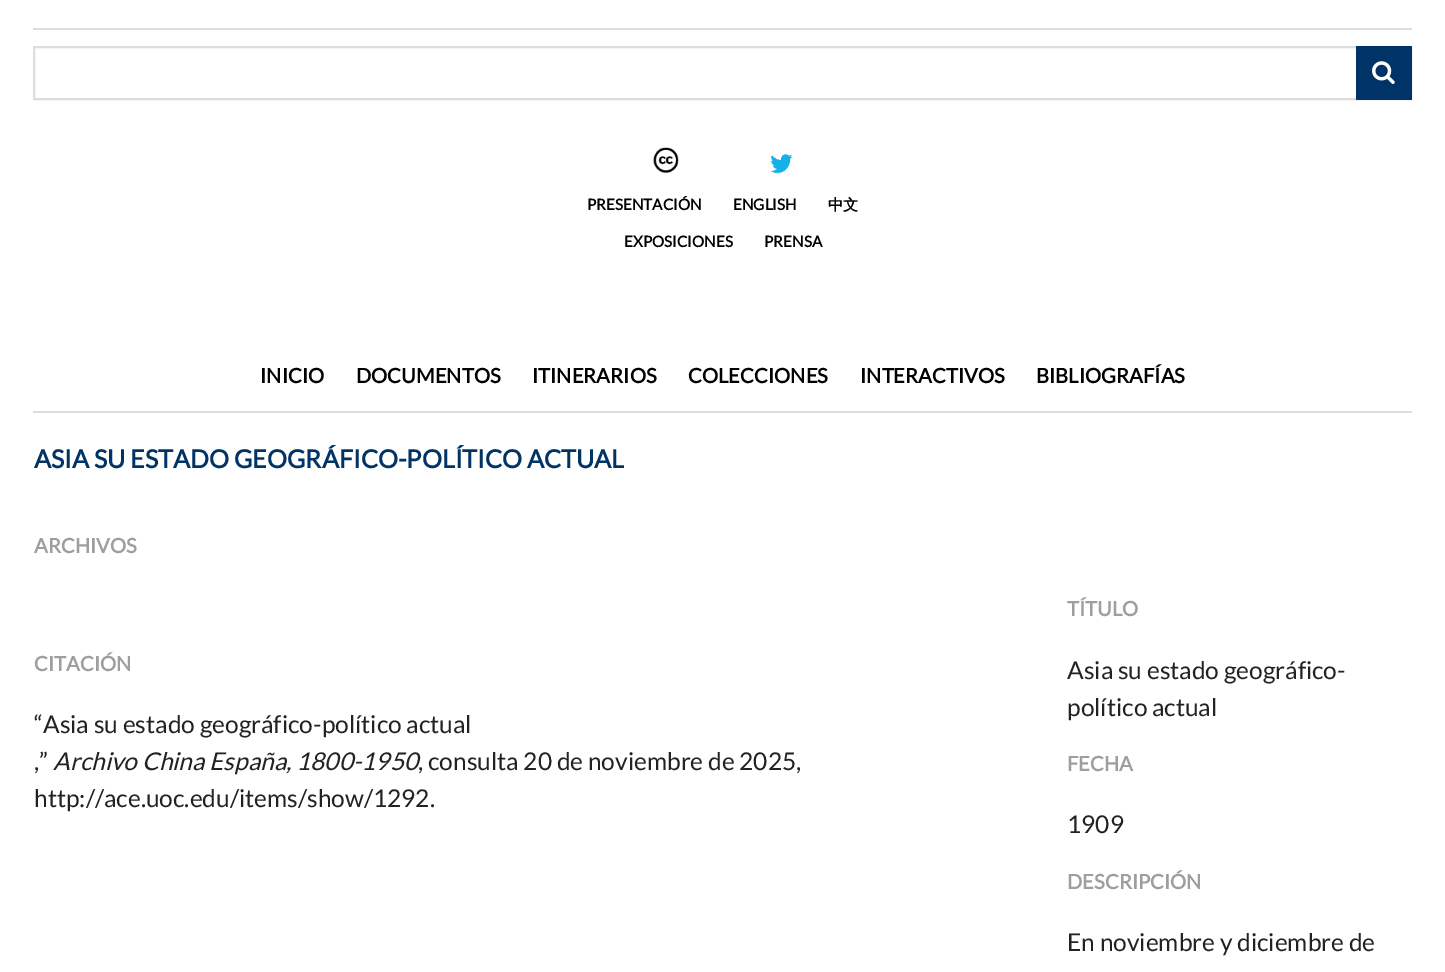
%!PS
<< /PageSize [1445 972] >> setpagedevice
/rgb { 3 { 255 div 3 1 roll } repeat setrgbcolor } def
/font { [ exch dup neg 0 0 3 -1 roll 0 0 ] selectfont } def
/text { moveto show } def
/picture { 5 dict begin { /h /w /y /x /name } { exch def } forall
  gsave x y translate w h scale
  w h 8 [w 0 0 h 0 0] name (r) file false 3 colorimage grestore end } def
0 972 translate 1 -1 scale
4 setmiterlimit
255 255 255 rgb
0 0 1445 972 rectfill
221 221 221 rgb
33 28 1379 2 rectfill
2 setlinewidth
34 47 1377 52 rectstroke
0 51 102 rgb
1356 46 56 54 rectfill
(img_01.rgb) 1372 61 23 23 picture
(img_02.rgb) 653 147 26 27 picture
(img_03.rgb) 770 154 23 20 picture
221 221 221 rgb
33 411 1379 2 rectfill
/Lato-Bold 15.25 font
0 0 0 rgb
(PRESENTACIÓN) 587 210 text
(ENGLISH) 733 210 text
/WenQuanYiZenHei-Bold 15.25 font
(中文) 828 210 text
/Lato-Bold 15.25 font
(EXPOSICIONES) 624 247 text
(PRENSA) 764 247 text
/Lato-Bold 20.25 font
(INICIO) 260 383 text
(DOCUMENTOS) 356 383 text
(ITINERARIOS) 532 383 text
(COLECCIONES) 688 383 text
(INTERACTIVOS) 860 383 text
(BIBLIOGRAFÍAS) 1036 383 text
/Lato-Bold 25.1 font
0 51 102 rgb
(ASIA SU ESTADO GEOGRÁFICO-POLÍTICO ACTUAL) 34 468 text
/Lato-Bold 20.25 font
158 158 158 rgb
(ARCHIVOS) 34 553 text
(CITACIÓN) 34 671 text
/Lato-Regular 24.5 font
34 34 34 rgb
(“Asia su estado geográfico-político actual) 34 733 text
(,”) 34 770 text
/Lato-Italic 24.5 font
(Archivo China España, 1800-1950) 53 770 text
/Lato-Regular 24.5 font
(, consulta 20 de noviembre de 2025,) 418 770 text
(http://ace.uoc.edu/items/show/1292.) 34 807 text
/Lato-Bold 20.25 font
158 158 158 rgb
(TÍTULO) 1067 616 text
/Lato-Regular 24.5 font
34 34 34 rgb
(Asia su estado geográfico-) 1067 679 text
(político actual) 1067 716 text
/Lato-Bold 20.25 font
158 158 158 rgb
(FECHA) 1067 771 text
/Lato-Regular 24.5 font
34 34 34 rgb
(1909) 1067 833 text
/Lato-Bold 20.25 font
158 158 158 rgb
(DESCRIPCIÓN) 1067 889 text
/Lato-Regular 24.5 font
34 34 34 rgb
(En noviembre y diciembre de) 1067 951 text
showpage
